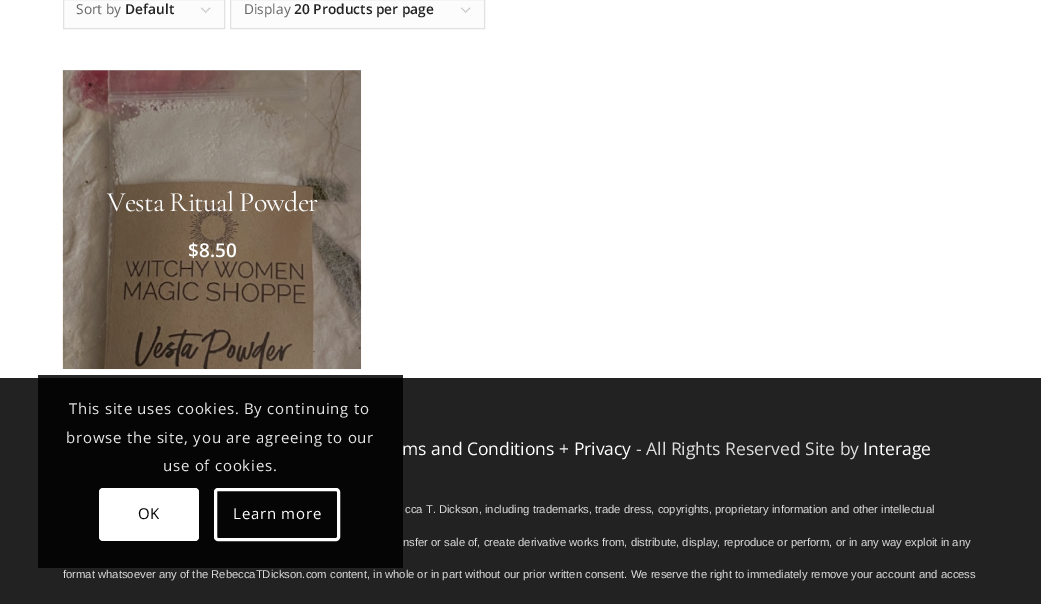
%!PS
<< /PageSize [1041 604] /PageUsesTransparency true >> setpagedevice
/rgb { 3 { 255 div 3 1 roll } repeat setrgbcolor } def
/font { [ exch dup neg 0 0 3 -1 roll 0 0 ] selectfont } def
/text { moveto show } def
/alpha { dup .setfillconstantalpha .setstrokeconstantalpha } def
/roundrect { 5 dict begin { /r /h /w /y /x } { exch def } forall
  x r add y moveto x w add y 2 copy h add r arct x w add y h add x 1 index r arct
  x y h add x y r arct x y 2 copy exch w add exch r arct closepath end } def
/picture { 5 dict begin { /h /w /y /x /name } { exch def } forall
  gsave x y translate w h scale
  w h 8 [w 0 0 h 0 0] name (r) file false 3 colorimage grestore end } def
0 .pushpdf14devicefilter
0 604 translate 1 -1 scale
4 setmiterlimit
255 255 255 rgb
0 0 1041 604 rectfill
166 166 166 rgb
63 70 298 1 rectfill
252 252 252 rgb
64 0 160 28 rectfill
(img_01.rgb) 201 7 10 6 picture
225 225 225 rgb
63.5 -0.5 161 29 rectstroke
252 252 252 rgb
231 0 253 28 rectfill
(img_01.rgb) 461 7 10 6 picture
225 225 225 rgb
230.5 -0.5 254 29 rectstroke
(img_02.rgb) 62 70 300 299 picture
34 34 34 rgb
0 378 1041 226 rectfill
0.85 alpha
0 0 0 rgb
38 375 365 193 rectfill
1 alpha
255 255 255 rgb
99 488 100 53 4 roundrect fill
3 setlinewidth
215.5 489.5 123 50 2.5 roundrect stroke
/OpenSans-Regular 13.75 font
102 102 102 rgb
(Sort by) 76 14 text
/OpenSans-SemiBold 13.75 font
34 34 34 rgb
(Default) 125 14 text
/OpenSans-Regular 13.75 font
102 102 102 rgb
(Display) 244 14 text
/OpenSans-SemiBold 13.75 font
34 34 34 rgb
(20 Products per page) 294 14 text
/CormorantGaramond-Regular 28 font
255 255 255 rgb
107 211 moveto -0.8 0 (Vesta Ritual Powder) ashow
/OpenSans-SemiBold 19 font
($8.50) 188 257 text
/OpenSans-Regular 17.5 font
(ms and Conditions + Privacy) 402 455 text
221 221 221 rgb
(- All Rights Reserved Site by) 636 455 text
255 255 255 rgb
(Interage) 863 455 text
/LiberationSans-Regular 11.25 font
221 221 221 rgb
(cca T. Dickson, including trademarks, trade dress, copyrights, proprietary information and other intellectual) 405 513 text
(nsfer or sale of, create derivative works from, distribute, display, reproduce or perform, or in any way exploit in any) 403 546 text
(format whatsoever any of the RebeccaTDickson.com content, in whole or in part without our prior written consent. We reserve the right to immediately remove your account and access) 63 578 text
/OpenSans-Regular 15 font
230 230 230 rgb
69 414 moveto 0.75 0 (This site uses cookies. By continuing to) ashow
66 443 moveto 0.75 0 (browse the site, you are agreeing to our) ashow
163 471 moveto 0.75 0 (use of cookies.) ashow
0 0 0 rgb
138 519 moveto 0.75 0 (OK) ashow
255 255 255 rgb
233 519 moveto 0.75 0 (Learn more) ashow
.poppdf14devicefilter showpage
